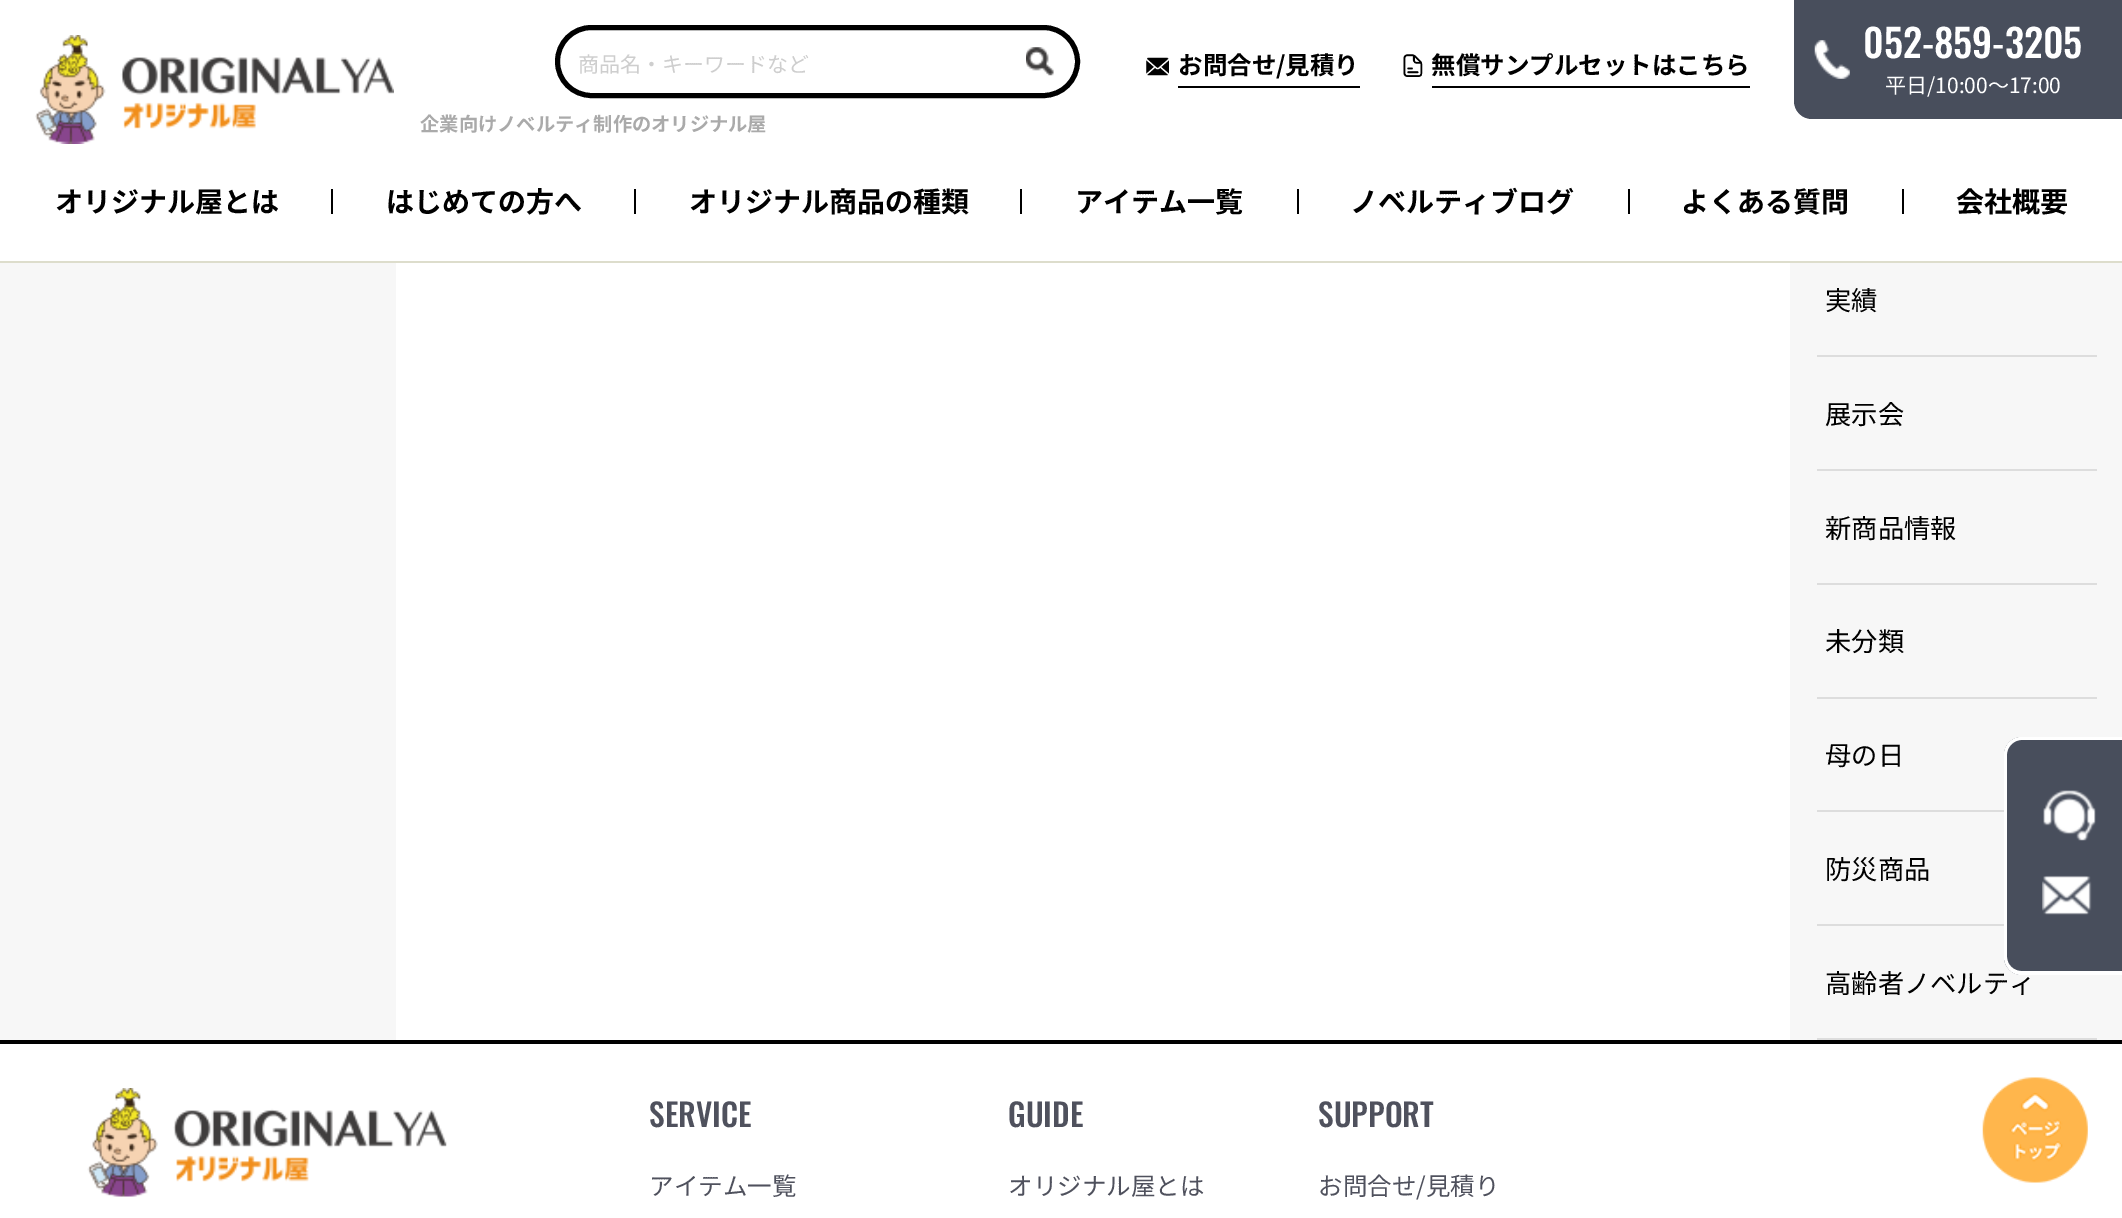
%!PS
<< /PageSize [2122 1218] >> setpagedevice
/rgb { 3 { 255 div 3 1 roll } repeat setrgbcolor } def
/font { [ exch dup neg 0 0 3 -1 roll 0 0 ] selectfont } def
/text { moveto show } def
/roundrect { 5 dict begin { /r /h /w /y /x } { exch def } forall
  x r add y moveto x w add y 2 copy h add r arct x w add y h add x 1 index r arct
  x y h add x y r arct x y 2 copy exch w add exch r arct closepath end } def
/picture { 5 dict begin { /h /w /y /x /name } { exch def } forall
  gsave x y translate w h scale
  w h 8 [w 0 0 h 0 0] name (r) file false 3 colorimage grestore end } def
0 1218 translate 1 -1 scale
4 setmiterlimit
255 255 255 rgb
0 0 2122 1218 rectfill
221 221 204 rgb
0 261 2122 2 rectfill
(img_01.rgb) 35 35 359 109 picture
0 0 0 rgb
5 setlinewidth
557.5 27.5 520 68 34 roundrect stroke
(img_02.rgb) 1026 47 28 29 picture
(img_03.rgb) 1146 57 23 19 picture
1178 86 182 2 rectfill
(img_04.rgb) 1403 54 20 23 picture
1432 86 318 2 rectfill
72 78 92 rgb
1794 0 moveto 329 0 rlineto 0 119 rlineto -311 0 rlineto -10 0 -18 -8 -18 -18 rcurveto closepath fill
(img_05.rgb) 1814 40 36 39 picture
0 0 0 rgb
331 189 2 25 rectfill
634 189 2 25 rectfill
1020 189 2 25 rectfill
1297 189 2 25 rectfill
1628 189 2 25 rectfill
1902 189 2 25 rectfill
247 247 247 rgb
0 263 396 777 rectfill
1790 263 332 777 rectfill
221 221 221 rgb
1817 355 280 2 rectfill
1817 469 280 2 rectfill
1817 583 280 2 rectfill
1817 697 280 2 rectfill
1817 810 187 2 rectfill
1817 924 187 2 rectfill
1817 1038 280 2 rectfill
0 0 0 rgb
0 1040 2122 4 rectfill
(img_08.rgb) 87 1088 360 109 picture
(img_09.rgb) 1982 1077 106 106 picture
/NotoSansJP-Regular 21 font
206 206 206 rgb
(商品名・キーワードなど) 578 72 text
/NotoSansJP-Bold 24.5 font
0 0 0 rgb
(お問合せ/見積り) 1178 74 text
(無償サンプルセットはこちら) 1431 74 text
/Oswald-Medium 38.5 font
255 255 255 rgb
(052-859-3205) 1863 58 text
/NotoSansJP-Regular 21 font
(平日/10:00〜17:00) 1885 93 text
/NotoSansJP-Bold 19.25 font
170 170 170 rgb
(企業向けノベルティ制作のオリジナル屋) 420 131 text
/NotoSansJP-Bold 28 font
0 0 0 rgb
(オリジナル屋とは) 55 212 text
(はじめての方へ) 386 212 text
(オリジナル商品の種類) 689 212 text
(アイテム一覧) 1075 212 text
(ノベルティブログ) 1350 212 text
(よくある質問) 1681 212 text
(会社概要) 1956 212 text
/NotoSansJP-Regular 26.25 font
(実績) 1825 310 text
(展示会) 1825 424 text
(新商品情報) 1825 538 text
(未分類) 1825 651 text
(母の日) 1825 765 text
(防災商品) 1825 879 text
(高齢者ノベルティ) 1825 993 text
72 78 92 rgb
2022 737 moveto 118 0 rlineto 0 238 rlineto -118 0 rlineto -10 0 -18 -8 -18 -18 rcurveto 0 -202 rlineto 0 -10 8 -18 18 -18 rcurveto closepath fill
255 255 255 rgb
2021 737 moveto 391 0 rlineto 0 238 rlineto -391 0 rlineto -9 0 -17 -8 -17 -18 rcurveto 0 -203 rlineto 0 -9 8 -17 17 -17 rcurveto closepath 2021 740 moveto 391 0 rlineto 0 231 rlineto -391 0 rlineto -7 0 -14 -6 -14 -14 rcurveto 0 -203 rlineto 0 -7 7 -14 14 -14 rcurveto closepath eofill
(img_06.rgb) 2043 790 53 51 picture
(img_07.rgb) 2042 875 50 40 picture
/Oswald-Medium 31.5 font
79 81 93 rgb
(SERVICE) 649 1127 text
/NotoSansJP-Regular 24.5 font
(アイテム一覧) 649 1195 text
/Oswald-Medium 31.5 font
(GUIDE) 1008 1127 text
/NotoSansJP-Regular 24.5 font
(オリジナル屋とは) 1008 1195 text
/Oswald-Medium 31.5 font
(SUPPORT) 1318 1127 text
/NotoSansJP-Regular 24.5 font
(お問合せ/見積り) 1318 1195 text
showpage
